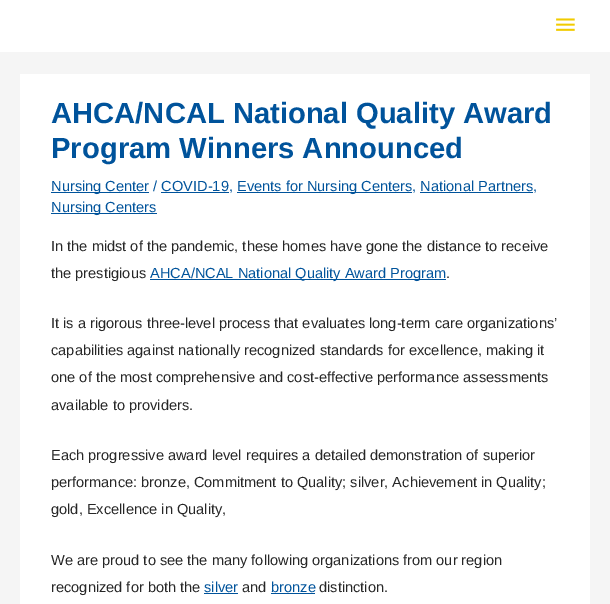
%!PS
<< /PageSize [610 604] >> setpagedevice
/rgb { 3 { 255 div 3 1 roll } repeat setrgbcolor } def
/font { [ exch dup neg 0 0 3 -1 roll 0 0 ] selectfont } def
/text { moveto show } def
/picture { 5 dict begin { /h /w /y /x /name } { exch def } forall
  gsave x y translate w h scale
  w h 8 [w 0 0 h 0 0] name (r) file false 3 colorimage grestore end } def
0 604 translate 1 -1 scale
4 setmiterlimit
245 245 245 rgb
0 0 610 604 rectfill
255 255 255 rgb
0 0 610 52 rectfill
(img_01.rgb) 556 18 19 13 picture
20 74 570 530 rectfill
0 83 155 rgb
51 192 98 1 rectfill
161 192 68 1 rectfill
237 192 175 1 rectfill
420 192 113 1 rectfill
51 213 106 1 rectfill
150 279 296 1 rectfill
204 593 34 1 rectfill
271 593 44 1 rectfill
/LiberationSans-Bold 29.2 font
(AHCA/NCAL National Quality Award) 51 123 text
(Program Winners Announced) 51 158 text
/LiberationSans-Regular 14.6 font
(Nursing Center / COVID-19,) 51 191 text
(Events for Nursing Centers, National Partners,) 237 191 text
(Nursing Centers) 51 212 text
38 38 38 rgb
(In the midst of the pandemic, these homes have gone the distance to receive) 51 251 text
(the prestigious) 51 278 text
0 83 155 rgb
(AHCA/NCAL National Quality Award Program) 150 278 text
38 38 38 rgb
(.) 446 278 text
(It is a rigorous three-level process that evaluates long-term care organizations’) 51 328 text
(capabilities against nationally recognized standards for excellence, making it) 51 355 text
(one of the most comprehensive and cost-effective performance assessments) 51 382 text
(available to providers.) 51 410 text
(Each progressive award level requires a detailed demonstration of superior) 51 460 text
(performance: bronze, Commitment to Quality; silver, Achievement in Quality;) 51 487 text
(gold, Excellence in Quality,) 51 514 text
(We are proud to see the many following organizations from our region) 51 565 text
(recognized for both the) 51 592 text
0 83 155 rgb
(silver) 204 592 text
38 38 38 rgb
(and) 242 592 text
0 83 155 rgb
(bronze) 271 592 text
38 38 38 rgb
(distinction.) 319 592 text
showpage
